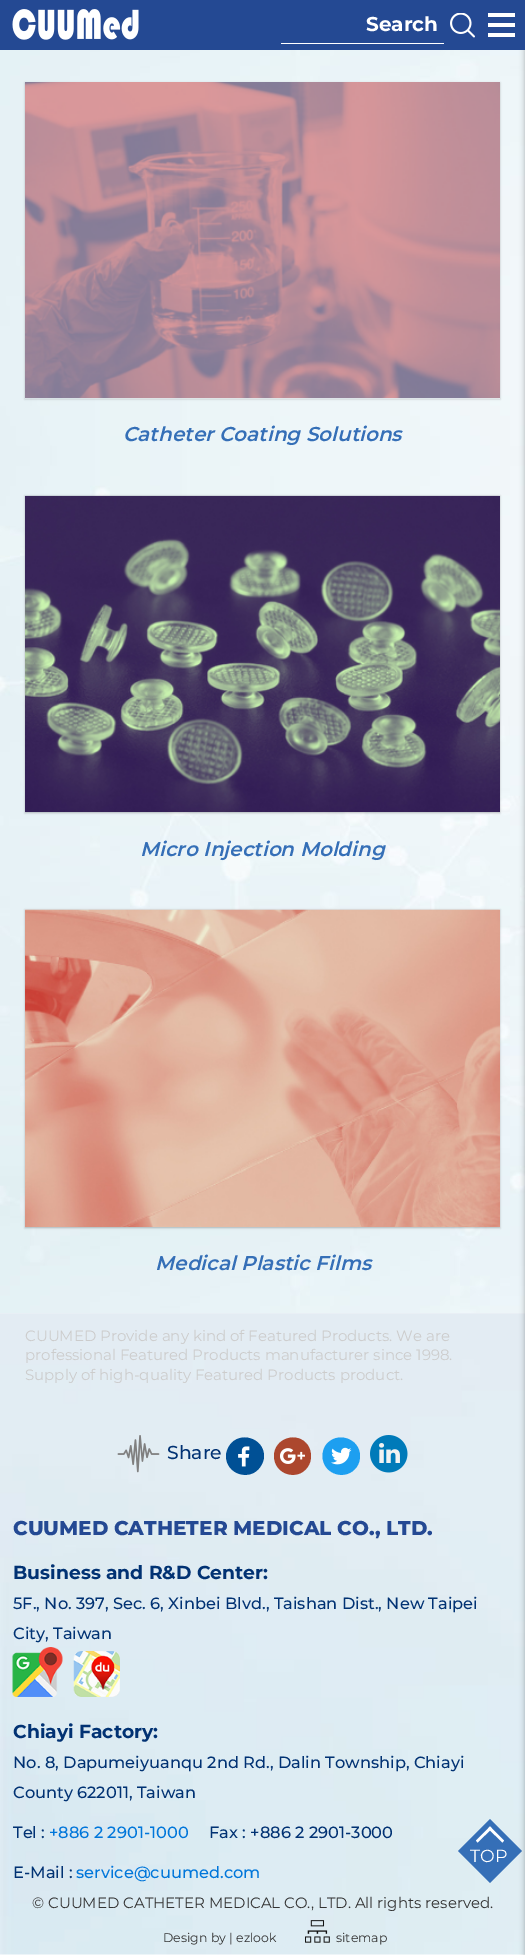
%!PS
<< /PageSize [525 1955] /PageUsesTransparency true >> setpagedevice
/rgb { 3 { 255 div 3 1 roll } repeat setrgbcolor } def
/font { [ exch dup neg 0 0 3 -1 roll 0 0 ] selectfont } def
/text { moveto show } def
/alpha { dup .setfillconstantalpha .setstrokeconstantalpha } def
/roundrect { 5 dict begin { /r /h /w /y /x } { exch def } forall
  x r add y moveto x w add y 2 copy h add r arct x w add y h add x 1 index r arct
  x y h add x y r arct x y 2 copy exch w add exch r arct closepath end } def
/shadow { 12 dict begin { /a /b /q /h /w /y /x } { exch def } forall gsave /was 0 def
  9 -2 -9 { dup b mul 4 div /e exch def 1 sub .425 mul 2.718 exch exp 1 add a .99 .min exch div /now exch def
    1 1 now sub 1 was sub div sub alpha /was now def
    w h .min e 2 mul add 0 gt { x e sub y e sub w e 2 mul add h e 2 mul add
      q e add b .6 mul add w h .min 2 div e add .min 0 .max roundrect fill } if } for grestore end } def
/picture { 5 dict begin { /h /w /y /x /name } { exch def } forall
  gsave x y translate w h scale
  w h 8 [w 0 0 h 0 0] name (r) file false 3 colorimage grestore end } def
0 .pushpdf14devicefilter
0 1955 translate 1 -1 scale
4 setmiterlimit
255 255 255 rgb
0 0 525 1955 rectfill
(img_03.rgb) 0 50 525 1264 picture
(img_07.rgb) 0 1313 525 642 picture
53 111 183 rgb
490 1819 moveto 32 32 rlineto -32 32 rlineto -32 -32 rlineto closepath fill
0 0 0 rgb
525 0 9 1955 0 3 0.3 shadow
36 73 147 rgb
475 0 50 50 rectfill
255 255 255 rgb
488 13 27 4 rectfill
488 23 27 4 rectfill
488 33 27 4 rectfill
36 73 147 rgb
0 0 475 50 rectfill
(img_01.rgb) 12 9 127 31 picture
255 255 255 rgb
281 43 163 1 rectfill
(img_02.rgb) 450 13 25 25 picture
0 0 0 rgb
25 83 475 316 0 1 0.25 shadow
(img_04.rgb) 25 82 475 317 picture
25 496 475 317 0 1 0.25 shadow
(img_05.rgb) 25 495 475 317 picture
25 910 475 318 0 1 0.25 shadow
(img_06.rgb) 25 909 475 318 picture
(img_08.rgb) 117 1435 43 38 picture
0 80 149 rgb
264 1456 moveto 0 4 -1.5 7.5 -3.5 10.5 rcurveto -10 15.5 -34.5 8 -34.5 -10.5 rcurveto 0 -3.5 1.5 -7.5 3.5 -10.5 rcurveto 10 -15 34.5 -7.5 34.5 10.5 rcurveto closepath fill
172 71 46 rgb
311 1456 moveto 0 4 -1 7.5 -3 10.5 rcurveto -10 15.5 -34 8 -34 -10.5 rcurveto 0 -18 24 -25.5 34 -10.5 rcurveto 2 3 3 7 3 10.5 rcurveto closepath fill
29 159 240 rgb
360 1456 moveto 0 4 -1 7.5 -3 10.5 rcurveto -10.5 15.5 -34.5 8 -34.5 -10.5 rcurveto 0 -3.5 1 -7.5 3 -10.5 rcurveto 10.5 -15 34.5 -7.5 34.5 10.5 rcurveto closepath fill
(img_09.rgb) 370 1435 38 38 picture
(img_10.rgb) 238 1446 12 21 picture
(img_11.rgb) 280 1448 16 16 picture
(img_12.rgb) 297 1451 8 9 picture
(img_13.rgb) 331 1447 21 18 picture
(img_14.rgb) 12 1647 51 50 picture
(img_15.rgb) 73 1651 47 46 picture
(img_16.rgb) 305 1920 25 23 picture
255 255 255 rgb
490 1826.5 moveto 14 14 rlineto -1.5 2 rlineto -14.5 -14 rlineto closepath fill
490 1826.5 moveto 2 2 rlineto -14.5 14 rlineto -1.5 -2 rlineto closepath fill
/Montserrat-Bold 20 font
(Search) 366 31 text
/Montserrat-SemiBoldItalic 20 font
53 111 183 rgb
(Catheter Coating Solutions) 123 441 text
(Micro Injection Molding) 140 856 text
(Medical Plastic Films) 155 1270 text
/Montserrat-Regular 15 font
204 204 204 rgb
(CUUMED Provide any kind of Featured Products. We are) 25 1341 text
(professional Featured Products manufacturer since 1998.) 25 1360 text
(Supply of high-quality Featured Products product.) 25 1380 text
/Montserrat-Medium 18.75 font
1 50 115 rgb
(Share) 167 1459 text
/Montserrat-ExtraBold 20 font
36 73 147 rgb
(CUUMED CATHETER MEDICAL CO., LTD.) 13 1535 text
/Montserrat-Bold 18.75 font
1 50 115 rgb
(Business and R&D Center:) 13 1579 text
/Montserrat-Medium 16.25 font
(5F., No. 397, Sec. 6, Xinbei Blvd., Taishan Dist., New Taipei) 13 1609 text
(City, Taiwan) 13 1639 text
/Montserrat-Bold 18.75 font
(Chiayi Factory:) 13 1738 text
/Montserrat-Medium 16.25 font
(No. 8, Dapumeiyuanqu 2nd Rd., Dalin Township, Chiayi) 13 1768 text
(County 622011, Taiwan) 13 1798 text
(Tel :) 13 1838 text
0 118 218 rgb
(+886 2 2901-1000) 49 1838 text
1 50 115 rgb
(Fax : +886 2 2901-3000) 209 1838 text
(E-Mail :) 13 1878 text
0 118 218 rgb
(service@cuumed.com) 76 1878 text
/Montserrat-Regular 15 font
51 51 51 rgb
(© CUUMED CATHETER MEDICAL CO., LTD. All rights reserved.) 32 1908 text
/Montserrat-Regular 12.5 font
(Design by | ezlook) 163 1942 text
(sitemap) 336 1942 text
/Montserrat-Regular 17.5 font
255 255 255 rgb
(TOP) 470 1862 text
.poppdf14devicefilter showpage
